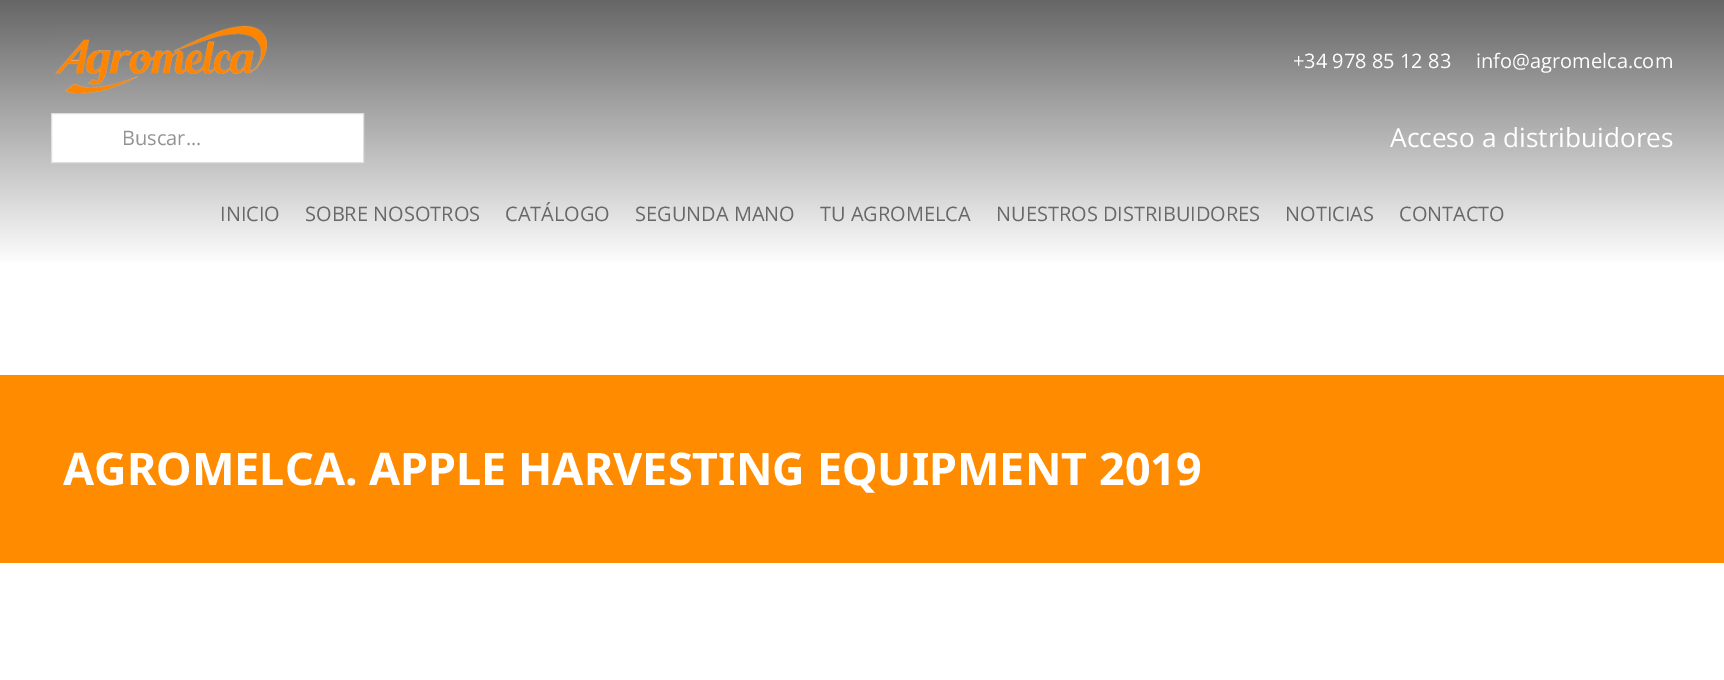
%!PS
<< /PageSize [1724 680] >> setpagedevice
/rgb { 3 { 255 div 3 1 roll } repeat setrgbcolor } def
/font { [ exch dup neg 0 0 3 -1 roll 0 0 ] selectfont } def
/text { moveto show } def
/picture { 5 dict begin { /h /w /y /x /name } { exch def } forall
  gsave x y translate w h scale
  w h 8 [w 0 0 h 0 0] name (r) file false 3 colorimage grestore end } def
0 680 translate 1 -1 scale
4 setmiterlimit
255 255 255 rgb
0 0 1724 680 rectfill
gsave 0 0 moveto 1724 0 rlineto 0 262 rlineto -1724 0 rlineto closepath clip newpath
<< /ShadingType 2 /ColorSpace /DeviceRGB /Coords [863 266 863 0] /Extend [true true] /Function << /FunctionType 2 /Domain [0 1] /C0 [1 1 1] /C1 [0.4 0.4 0.4] /N 1 >> >> shfill grestore
(img_01.rgb) 55 25 212 69 picture
51.5 113.5 moveto 312 0 rlineto 0 49 rlineto -312 0 rlineto closepath gsave fill grestore
221 222 223 rgb
stroke
255 139 0 rgb
0 375 1724 188 rectfill
/OpenSans-Regular 20 font
255 255 255 rgb
(+34 978 85 12 83) 1293 68 text
(info@agromelca.com) 1476 68 text
147 147 147 rgb
(Buscar...) 122 145 text
/OpenSans-Regular 26.25 font
255 255 255 rgb
(Acceso a distribuidores) 1390 147 text
/OpenSans-Regular 20 font
104 104 104 rgb
(INICIO) 220 221 text
(SOBRE NOSOTROS) 305 221 text
(CATÁLOGO) 505 221 text
(SEGUNDA MANO) 635 221 text
(TU AGROMELCA) 820 221 text
(NUESTROS DISTRIBUIDORES) 996 221 text
(NOTICIAS) 1285 221 text
(CONTACTO) 1399 221 text
/NotoSans-Bold 45 font
255 255 255 rgb
(AGROMELCA. APPLE HARVESTING EQUIPMENT 2019) 63 485 text
showpage
